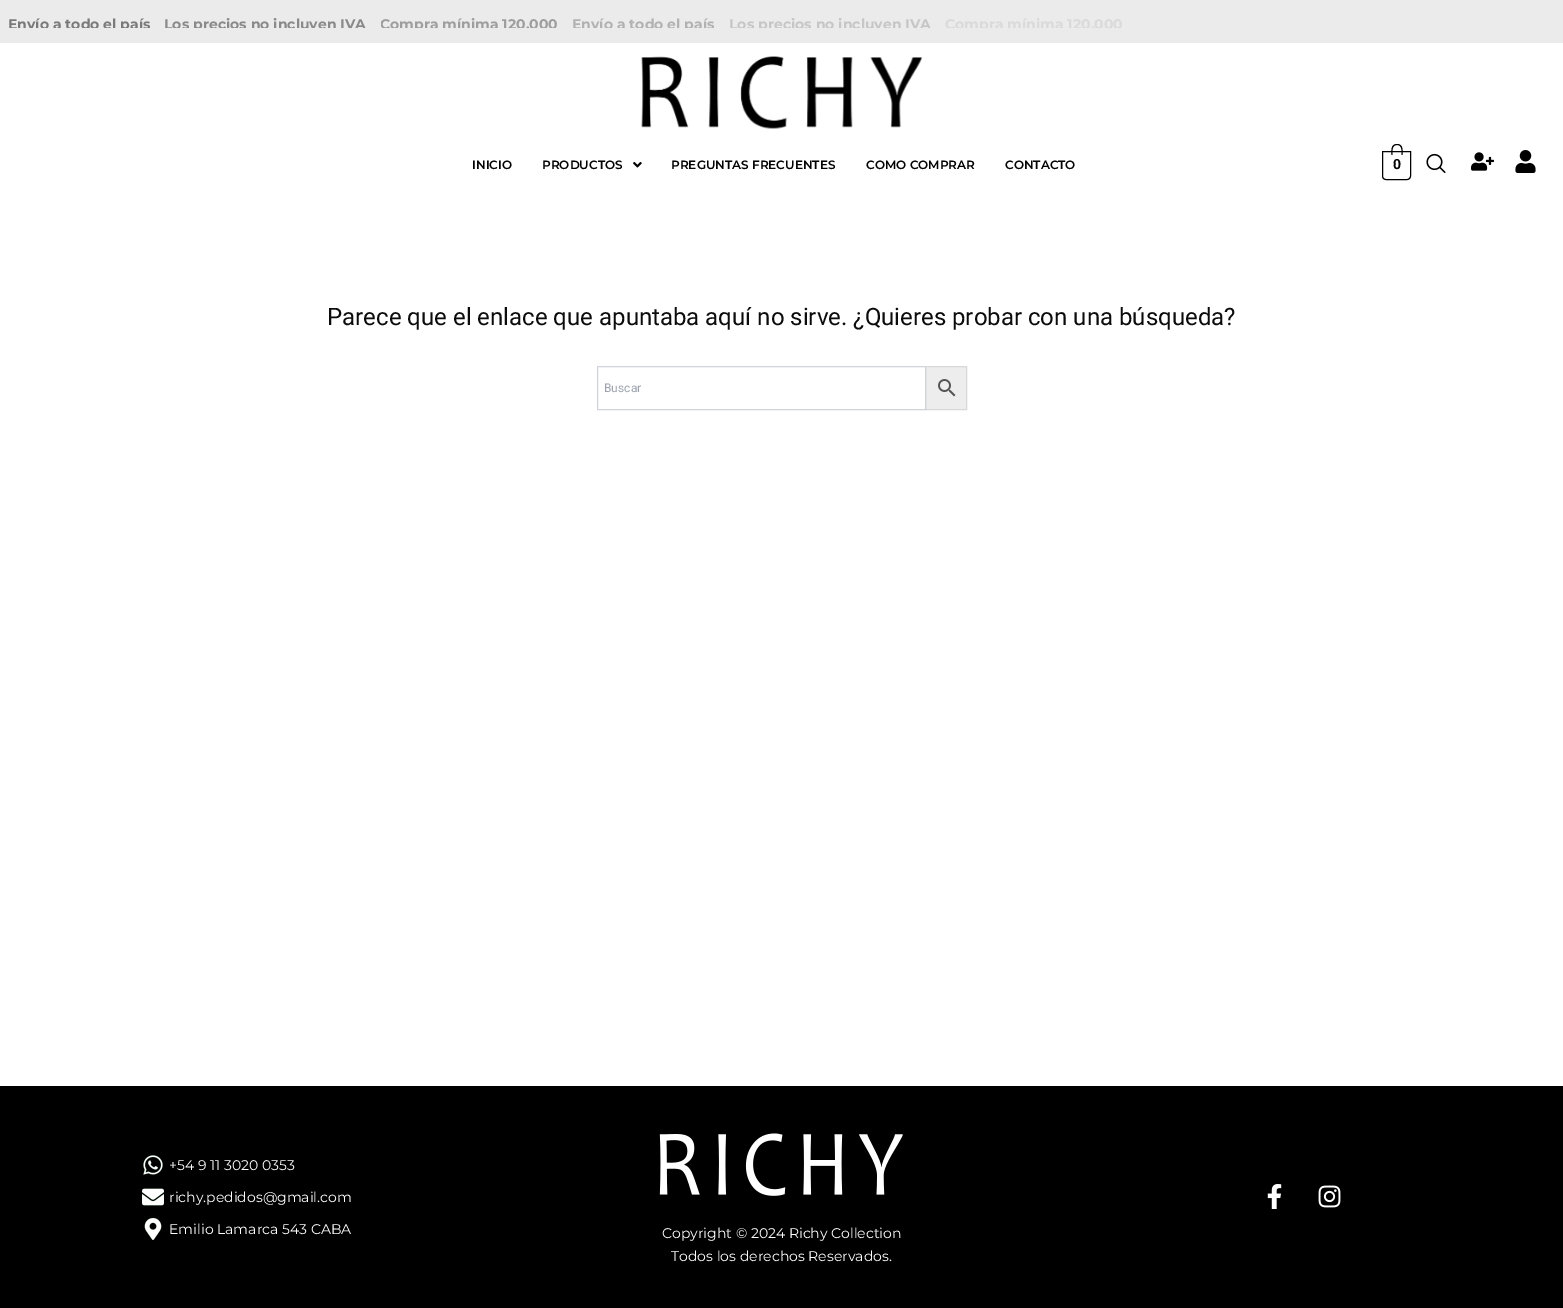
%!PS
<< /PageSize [1563 1308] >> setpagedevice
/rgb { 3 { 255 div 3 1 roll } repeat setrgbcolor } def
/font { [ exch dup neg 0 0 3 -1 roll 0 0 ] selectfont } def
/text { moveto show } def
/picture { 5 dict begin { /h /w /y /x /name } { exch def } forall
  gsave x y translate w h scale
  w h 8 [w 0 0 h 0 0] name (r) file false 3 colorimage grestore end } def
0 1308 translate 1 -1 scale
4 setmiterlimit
255 255 255 rgb
0 0 1563 1308 rectfill
235 235 235 rgb
0 0 1563 43 rectfill
(img_01.rgb) 641 56 282 73 picture
(img_02.rgb) 633 162 9 6 picture
0 0 0 rgb
1382.5 151.5 moveto 28 0 rlineto 0 24.5 rlineto 0 2 -1.5 3.5 -3.5 3.5 rcurveto -21 0 rlineto -2 0 -3.5 -1.5 -3.5 -3.5 rcurveto closepath stroke
1397 144 moveto 6.5 0 5.5 6.5 5.5 11 rcurveto -11 0 rlineto 0 -4.5 -1 -11 5.5 -11 rcurveto closepath 1397 145 moveto 5.5 0 4.5 6.5 4.5 10 rcurveto -9 0 rlineto 0 -3.5 -1 -10 4.5 -10 rcurveto closepath eofill
(img_03.rgb) 1426 153 20 20 picture
(img_04.rgb) 1471 152 23 19 picture
(img_05.rgb) 1515 150 21 23 picture
237 237 237 rgb
925.5 366.5 moveto 41 0 rlineto 0 43 rlineto -41 0 rlineto closepath gsave fill grestore
216 216 216 rgb
stroke
209 213 219 rgb
597.5 366.5 328 43 rectstroke
(img_06.rgb) 938 379 18 18 picture
0 0 0 rgb
0 1086 1563 222 rectfill
(img_07.rgb) 143 1155 20 20 picture
(img_08.rgb) 142 1188 22 18 picture
(img_09.rgb) 144 1218 18 22 picture
(img_10.rgb) 1267 1184 15 25 picture
(img_11.rgb) 1318 1185 23 23 picture
(img_12.rgb) 659 1133 244 63 picture
gsave
8 15 142 13 rectclip
/Montserrat-Bold 14 font
122 122 122 rgb
(Envío a todo el país) 8 29 text
grestore
gsave
165 15 202 13 rectclip
/Montserrat-Bold 14 font
138 138 138 rgb
(Los precios no incluyen IVA) 164 29 text
grestore
gsave
381 15 177 13 rectclip
/Montserrat-Bold 14 font
158 158 158 rgb
(Compra mínima 120.000) 380 29 text
grestore
gsave
572 15 142 13 rectclip
/Montserrat-Bold 14 font
178 178 178 rgb
(Envío a todo el país) 572 29 text
grestore
gsave
729 15 202 13 rectclip
/Montserrat-Bold 14 font
198 198 198 rgb
(Los precios no incluyen IVA) 729 29 text
grestore
gsave
945 15 177 13 rectclip
/Montserrat-Bold 14 font
218 218 218 rgb
(Compra mínima 120.000) 945 29 text
grestore
/Montserrat-SemiBold 12 font
(INICIO) 472 169 text
(PRODUCTOS) 542 169 text
(PREGUNTAS FRECUENTES) 671 169 text
(COMO COMPRAR) 866 169 text
(CONTACTO) 1005 169 text
/Roboto-Bold 14 font
(0) 1393 169 text
/Roboto-Regular 24 font
12 12 12 rgb
(Parece que el enlace que apuntaba aquí no sirve. ¿Quieres probar con una búsqueda?) 327 325 text
/Roboto-Regular 12 font
156 163 175 rgb
(Buscar) 604 392 text
/Montserrat-Regular 14 font
255 255 255 rgb
(+54 9 11 3020 0353) 169 1170 text
(richy.pedidos@gmail.com) 169 1202 text
(Emilio Lamarca 543 CABA) 169 1234 text
(Copyright © 2024 Richy Collection) 662 1238 text
(Todos los derechos Reservados.) 671 1261 text
showpage
